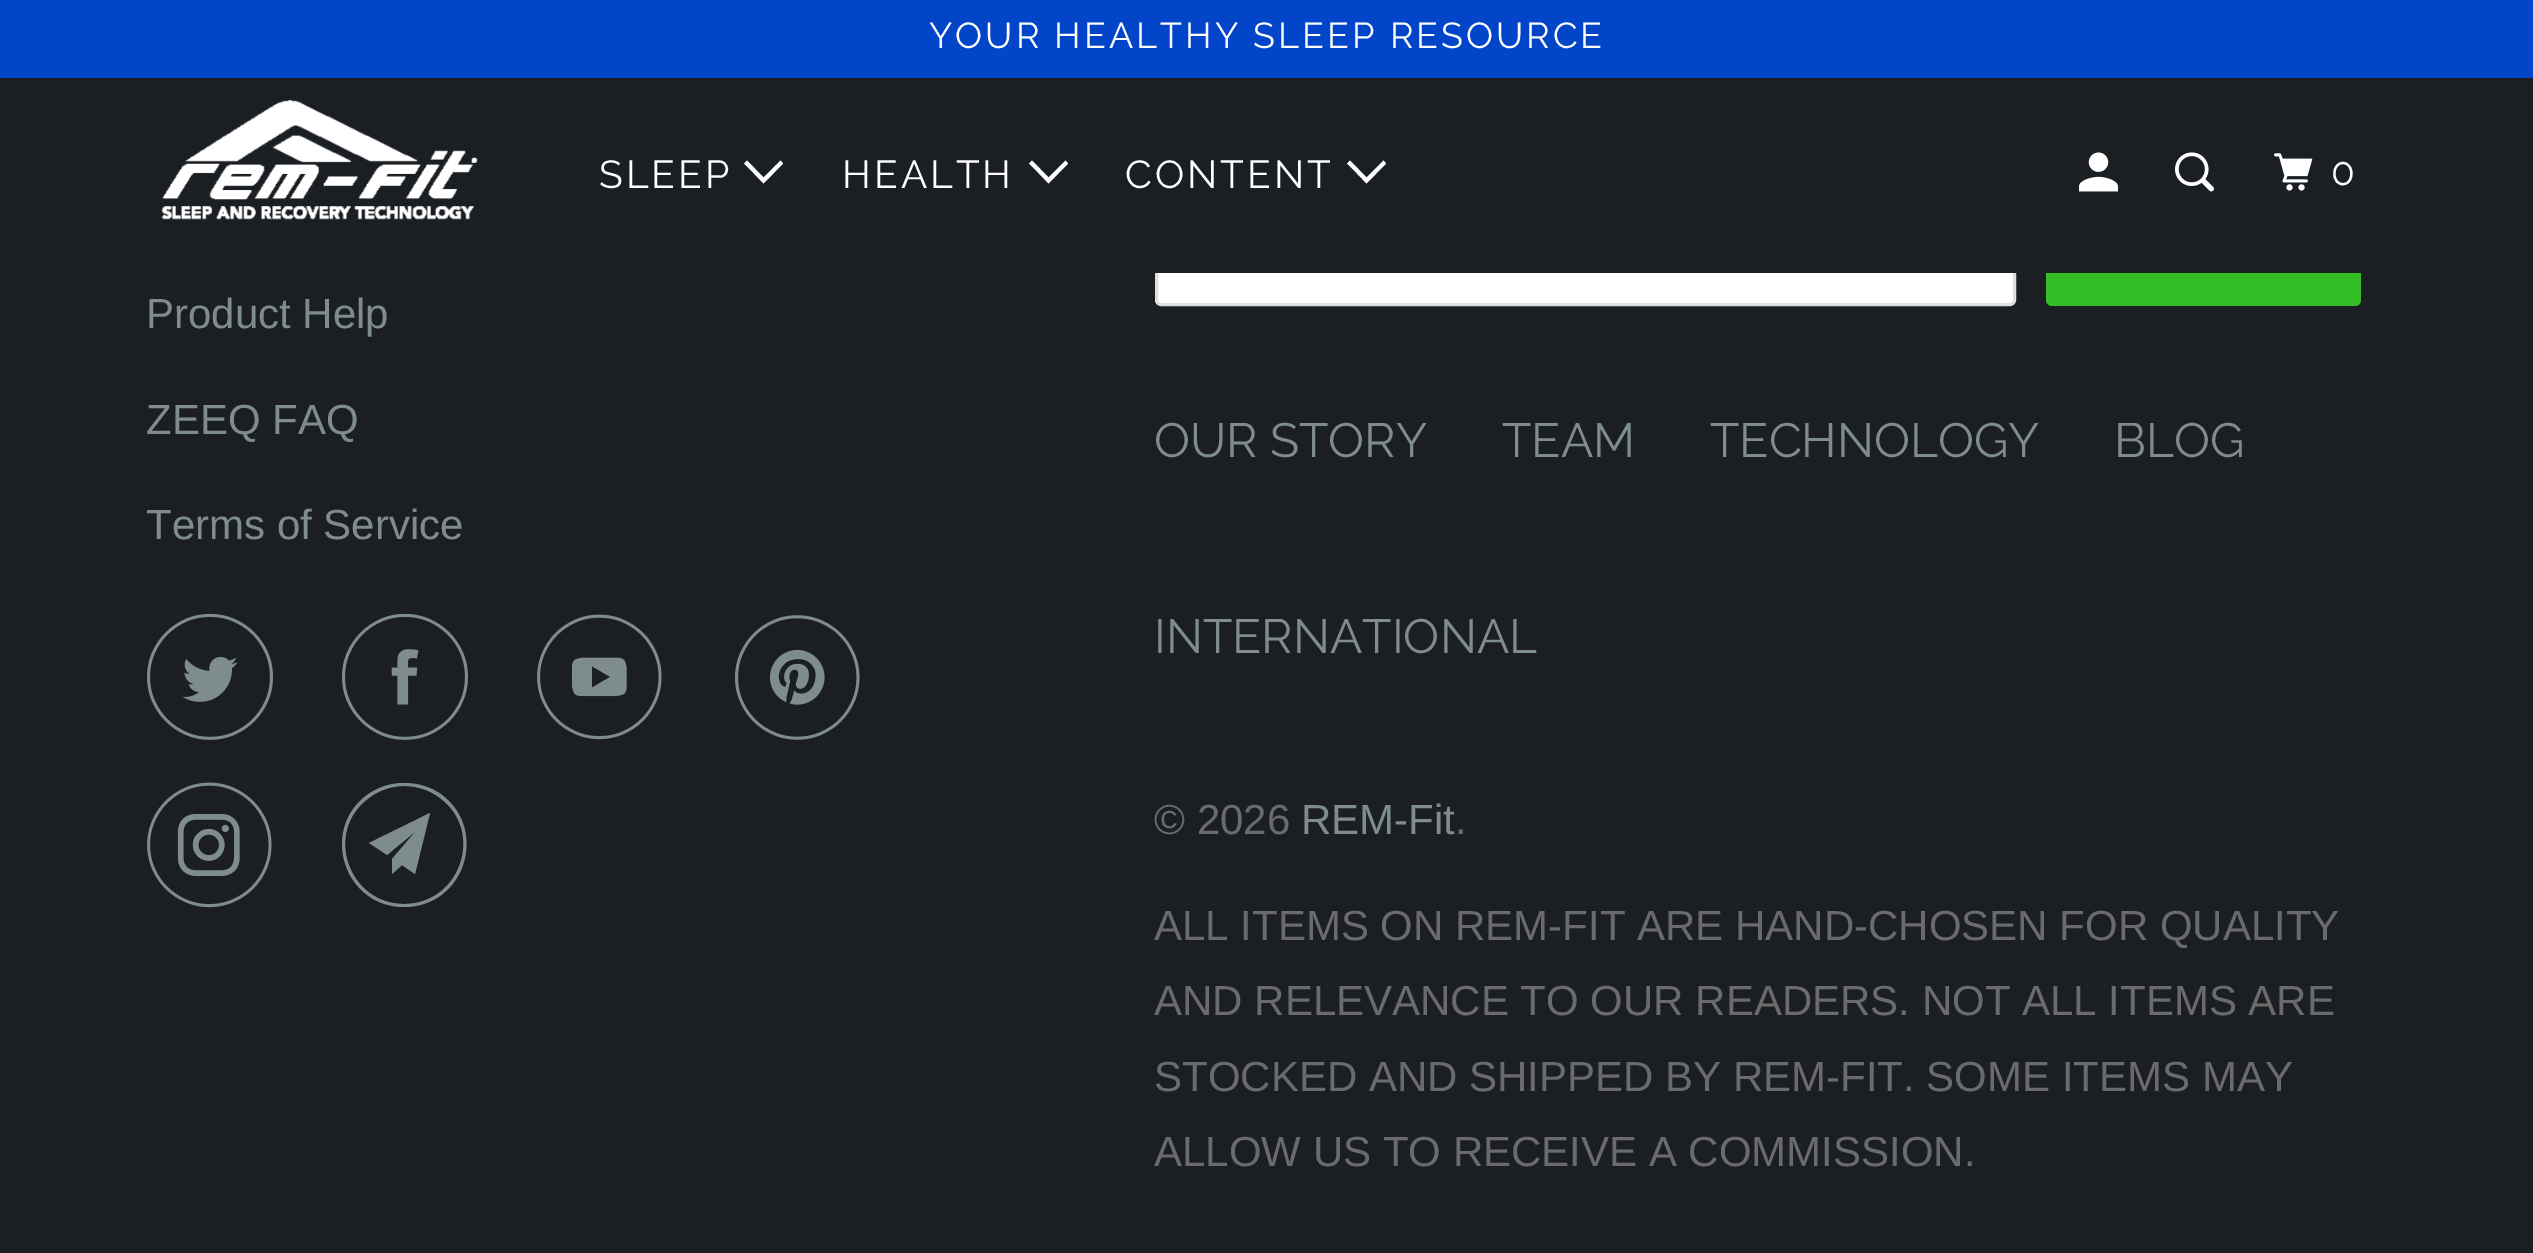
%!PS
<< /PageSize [2533 1253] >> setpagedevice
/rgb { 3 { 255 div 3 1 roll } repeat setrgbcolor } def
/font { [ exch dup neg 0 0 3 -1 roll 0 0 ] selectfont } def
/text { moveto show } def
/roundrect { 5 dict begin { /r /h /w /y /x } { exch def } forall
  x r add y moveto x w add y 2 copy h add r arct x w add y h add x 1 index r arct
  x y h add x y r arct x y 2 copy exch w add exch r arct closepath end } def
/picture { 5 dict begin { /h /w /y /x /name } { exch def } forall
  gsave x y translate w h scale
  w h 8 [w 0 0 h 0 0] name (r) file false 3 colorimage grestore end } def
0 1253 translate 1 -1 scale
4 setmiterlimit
27 31 35 rgb
0 0 2533 1253 rectfill
2 69 200 rgb
0 0 2533 78 rectfill
255 255 255 rgb
1156.5 187.5 858 117 4.5 roundrect gsave fill grestore
223 223 223 rgb
3 setlinewidth
stroke
50 190 36 rgb
2046 186 315 120 6 roundrect fill
27 31 35 rgb
1155 186 1206 87 rectfill
(img_01.rgb) 161 100 317 120 picture
255 255 255 rgb
754 173.5 moveto -10 -10 rlineto 3 -3 rlineto 16.5 17 rlineto 17 -17 rlineto 2.5 3 rlineto -19.5 20 rlineto closepath fill
1039 173.5 moveto -10 -10 rlineto 3 -3 rlineto 16.5 17 rlineto 17 -17 rlineto 2.5 3 rlineto -19.5 20 rlineto closepath fill
1357 173.5 moveto -10 -10 rlineto 3 -3 rlineto 16.5 17 rlineto 17 -17 rlineto 2.5 3 rlineto -19.5 20 rlineto closepath fill
(img_02.rgb) 2079 152 39 40 picture
(img_03.rgb) 2175 152 39 40 picture
(img_04.rgb) 2274 153 39 38 picture
(img_05.rgb) 147 613 126 127 picture
(img_06.rgb) 342 613 126 127 picture
(img_07.rgb) 537 614 125 126 picture
(img_08.rgb) 735 615 125 125 picture
(img_09.rgb) 147 782 125 126 picture
127 140 141 rgb
415 874 moveto -13 -9 rlineto -10 9 rlineto 0 -15 rlineto 24 -28 rlineto -29 24 rlineto -18 -12 rlineto 61 -30 rlineto closepath 404 786 moveto -12 0 -25 4 -35 12 rcurveto -46 33 -21 106 35 106 rcurveto 57 0 81 -73 36 -106 rcurveto -10 -8 -23 -12 -36 -12 rcurveto closepath 404 907 moveto -59 0 -85 -76 -37 -112 rcurveto 11 -8 24 -12 37 -12 rcurveto 14 0 27 4 38 12 rcurveto 47 36 22 112 -38 112 rcurveto closepath fill
/Raleway-Regular 36 font
255 255 255 rgb
929 48 moveto 3 0 (YOUR HEALTHY SLEEP RESOURCE) ashow
/Raleway-Regular 39 font
599 188 moveto 3 0 (SLEEP) ashow
842 188 moveto 3 0 (HEALTH) ashow
1125 188 moveto 3 0 (CONTENT) ashow
2331 185 moveto 3 0 (0) ashow
/LiberationSans-Regular 42 font
127 140 141 rgb
(Product Help) 146 328 text
(ZEEQ FAQ) 146 434 text
(Terms of Service) 146 539 text
/Raleway-Regular 48 font
(OUR STORY) 1154 457 text
(TEAM) 1502 457 text
(TECHNOLOGY) 1710 457 text
(BLOG) 2114 457 text
(INTERNATIONAL) 1154 653 text
/LiberationSans-Regular 42 font
107 107 107 rgb
(© 2026) 1154 834 text
127 140 141 rgb
(REM-Fit) 1301 834 text
107 107 107 rgb
(.) 1455 834 text
(ALL ITEMS ON REM-FIT ARE HAND-CHOSEN FOR QUALITY) 1154 940 text
(AND RELEVANCE TO OUR READERS. NOT ALL ITEMS ARE) 1154 1015 text
(STOCKED AND SHIPPED BY REM-FIT. SOME ITEMS MAY) 1154 1091 text
(ALLOW US TO RECEIVE A COMMISSION.) 1154 1166 text
showpage
